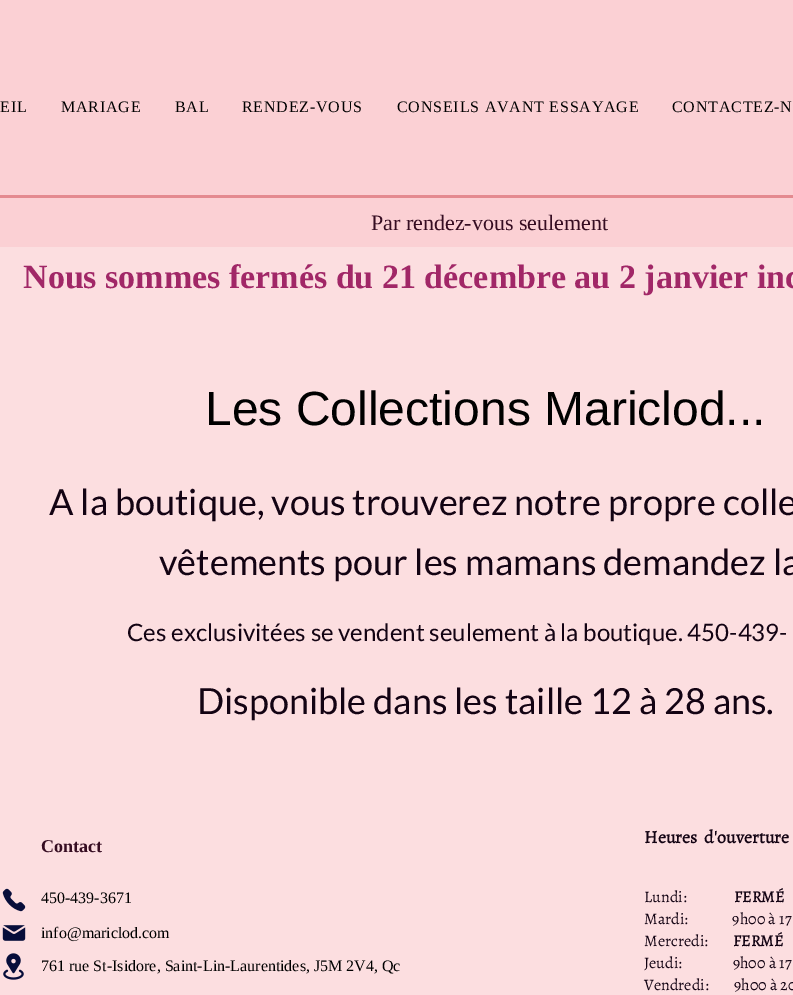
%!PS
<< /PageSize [793 995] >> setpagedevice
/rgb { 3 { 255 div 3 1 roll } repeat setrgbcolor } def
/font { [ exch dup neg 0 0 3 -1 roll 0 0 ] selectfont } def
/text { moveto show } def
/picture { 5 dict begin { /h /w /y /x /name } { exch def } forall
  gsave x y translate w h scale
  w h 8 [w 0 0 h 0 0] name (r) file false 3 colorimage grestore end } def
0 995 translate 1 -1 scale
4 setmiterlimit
252 222 224 rgb
0 0 793 995 rectfill
251 208 212 rgb
0 0 793 247 rectfill
228 138 144 rgb
0 195 793 3 rectfill
(img_01.rgb) 2 888 24 24 picture
(img_02.rgb) 2 925 24 16 picture
(img_03.rgb) 3 953 21 27 picture
/LiberationSerif-Regular 16 font
0 0 0 rgb
0 112 moveto 0.8 0 (EIL) ashow
61 112 moveto 0.8 0 (MARIAGE) ashow
175 112 moveto 0.8 0 (BAL) ashow
242 112 moveto 0.8 0 (RENDEZ-VOUS) ashow
397 112 moveto 0.8 0 (CONSEILS AVANT ESSAYAGE) ashow
672 112 moveto 0.8 0 (CONTACTEZ-N) ashow
/LiberationSerif-Regular 22 font
54 13 34 rgb
(Par rendez-vous seulement) 371 230 text
/LiberationSerif-Bold 34 font
161 39 103 rgb
(Nous sommes fermés du 21 décembre au 2 janvier inc) 23 288 text
/LiberationSans-Regular 48 font
0 0 0 rgb
(Les Collections Mariclod...) 205 425 text
/Lato-Regular 36 font
19 3 19 rgb
(A la boutique, vous trouverez notre propre colle) 49 515 text
(vêtements pour les mamans demandez la) 159 575 text
/Lato-Regular 24 font
(Ces exclusivitées se vendent seulement à la boutique. 450-439-) 127 641 text
/Lato-Regular 36 font
(Disponible dans les taille 12 à 28 ans.) 197 714 text
/LiberationSerif-Bold 18 font
54 13 34 rgb
(Contact) 41 852 text
/LiberationSerif-Regular 16 font
0 0 0 rgb
(450-439-3671) 41 903 text
(info@mariclod.com) 41 938 text
(761 rue St-Isidore, Saint-Lin-Laurentides, J5M 2V4, Qc) 41 971 text
/Alegreya-Bold 18 font
19 3 19 rgb
644 843 moveto 3 0 32 (Heures d'ouverture) widthshow
/Alegreya-Regular 16 font
(Lundi:) 644 902 text
/Alegreya-Bold 16 font
(FERMÉ) 734 902 text
/Alegreya-Regular 16 font
(Mardi:              9h00 à 17) 644 924 text
(Mercredi:) 644 946 text
/Alegreya-Bold 16 font
(FERMÉ) 733 946 text
/Alegreya-Regular 16 font
(Jeudi:                9h00 à 17) 644 968 text
(Vendredi:        9h00 à 20) 644 990 text
showpage
